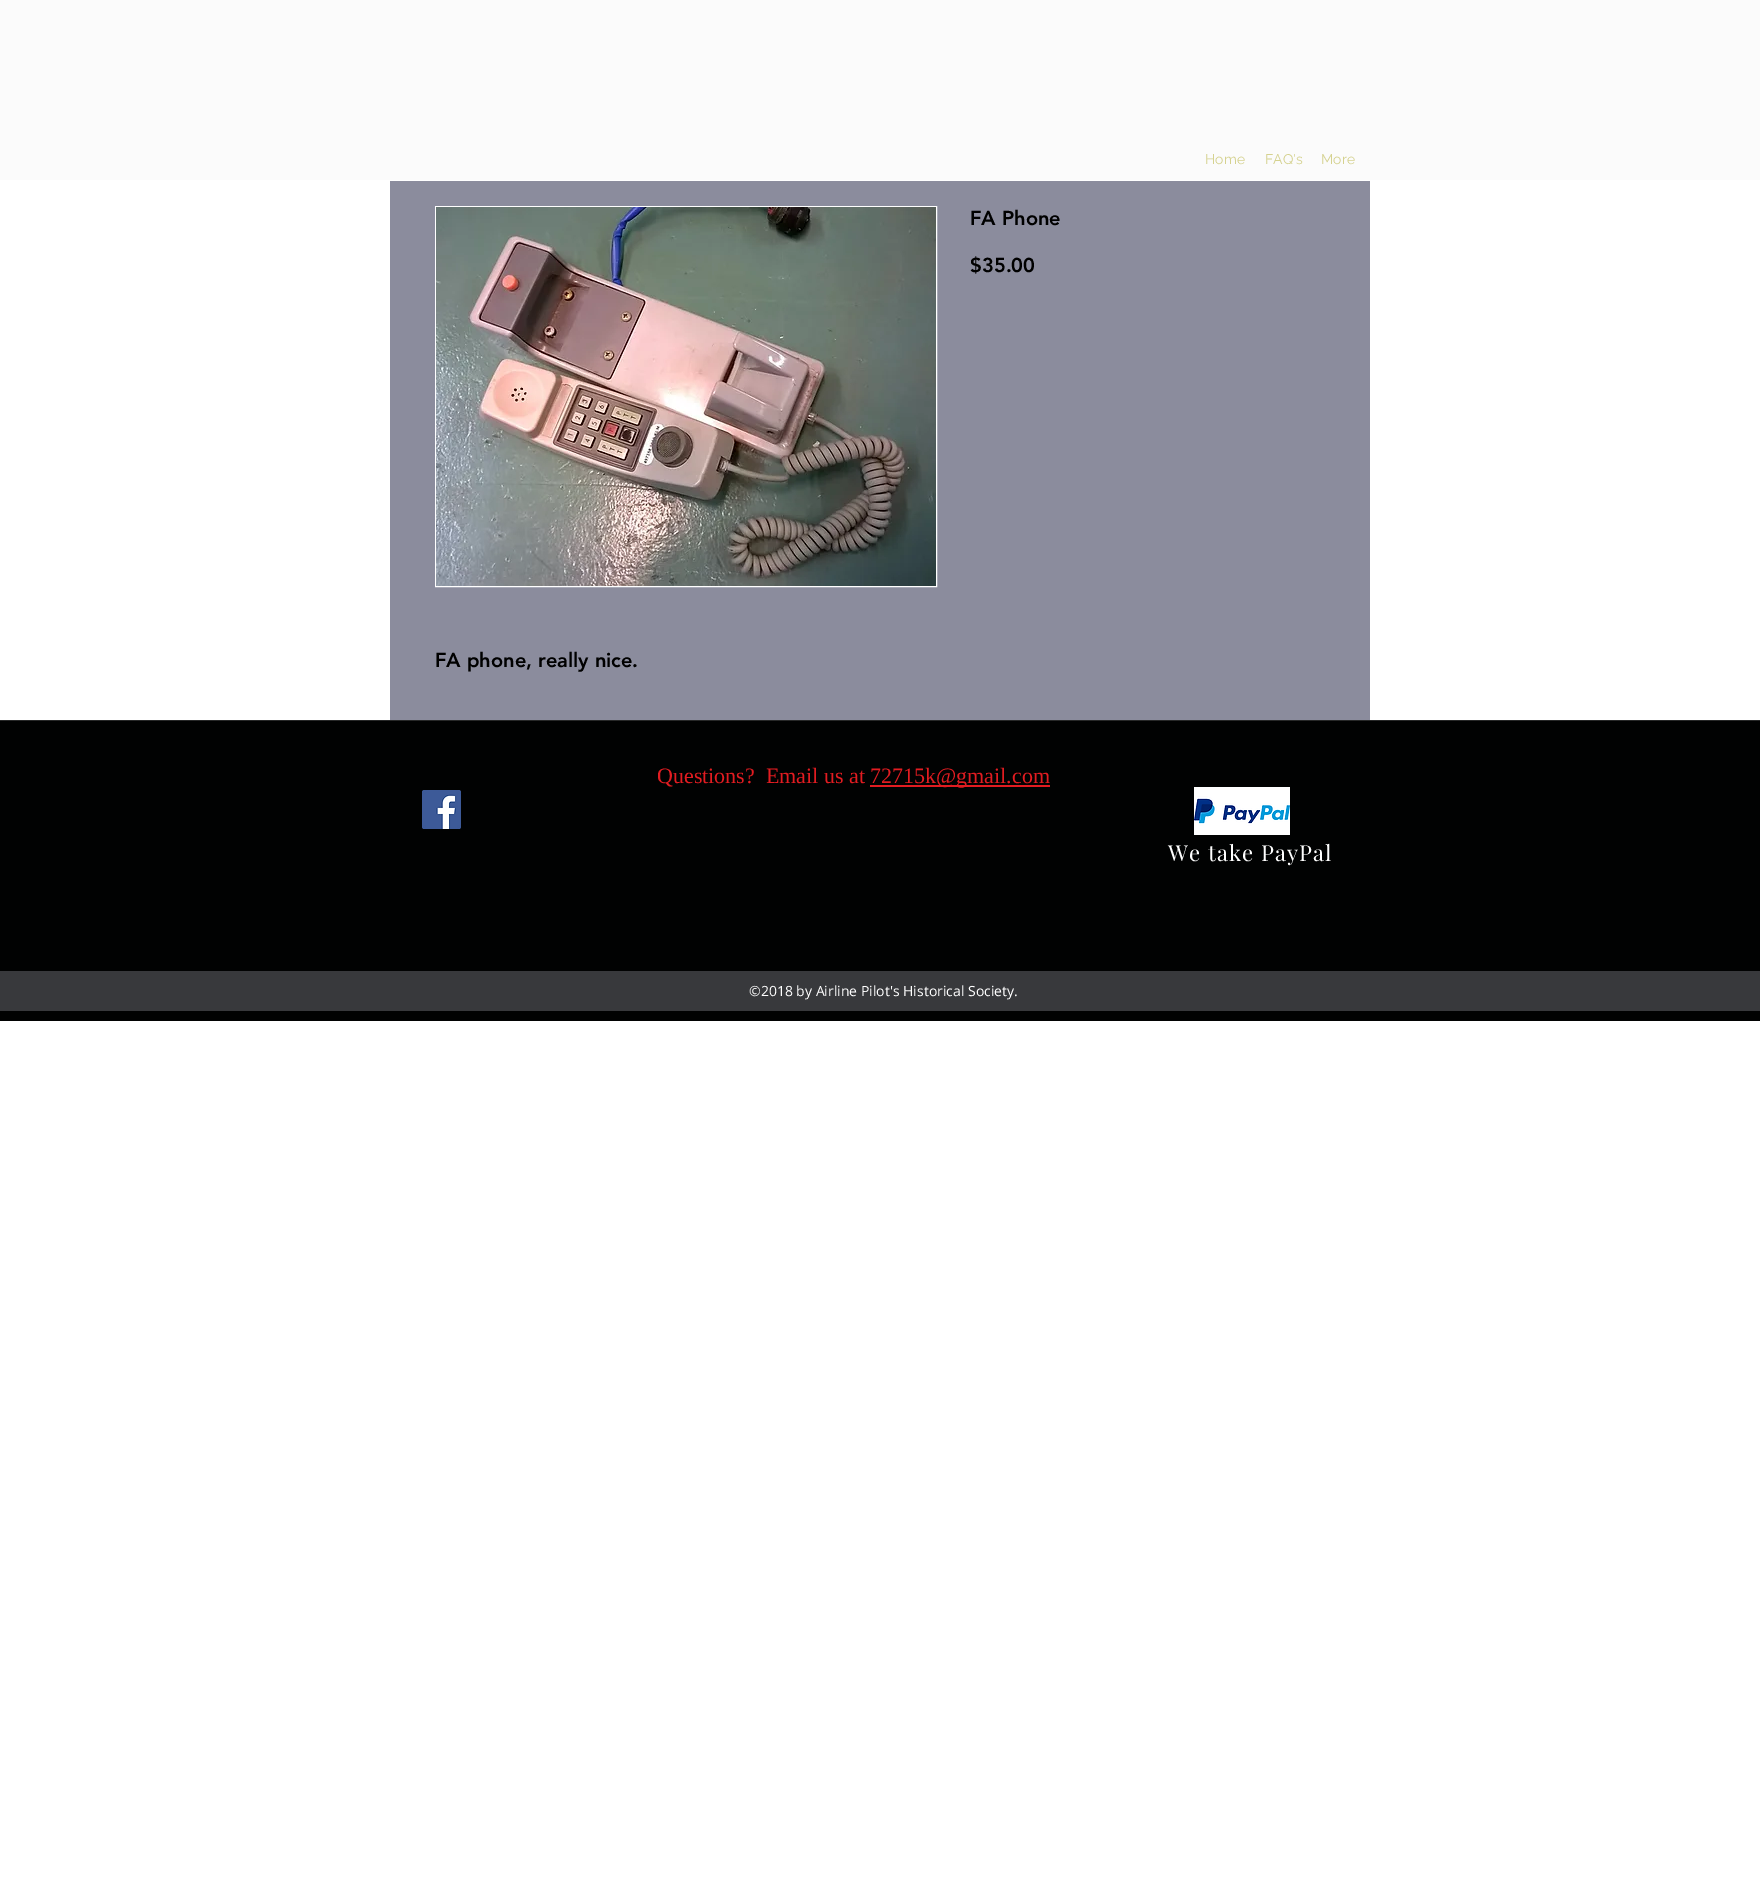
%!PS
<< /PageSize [1760 1893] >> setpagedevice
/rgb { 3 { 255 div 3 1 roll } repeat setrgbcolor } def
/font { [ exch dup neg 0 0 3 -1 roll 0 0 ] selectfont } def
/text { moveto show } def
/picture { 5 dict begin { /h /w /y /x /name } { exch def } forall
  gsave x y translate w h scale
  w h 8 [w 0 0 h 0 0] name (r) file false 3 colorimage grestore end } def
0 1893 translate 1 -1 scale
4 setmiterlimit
255 255 255 rgb
0 0 1760 1893 rectfill
251 251 251 rgb
0 0 1760 180 rectfill
139 140 157 rgb
390 181 980 539 rectfill
255 255 255 rgb
435.5 206.5 501 380 rectstroke
(img_01.rgb) 436 207 500 379 picture
1 2 2 rgb
0 721 1760 300 rectfill
39 40 40 rgb
0 720 1760 1 rectfill
226 28 33 rgb
870 785 180 2 rectfill
(img_02.rgb) 422 790 39 39 picture
(img_03.rgb) 1194 787 96 48 picture
56 57 60 rgb
0 971 1760 40 rectfill
/Raleway-Regular 14 font
213 210 143 rgb
(Home) 1205 164 text
(FAQ's) 1265 164 text
(More) 1321 164 text
/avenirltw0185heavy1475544-Black 20 font
0 0 0 rgb
(FA Phone) 970 225 text
($35.00) 970 272 text
(FA phone, really nice.) 435 667 text
/LiberationSerif-Regular 22 font
226 28 33 rgb
(Questions?  Email us at) 657 783 text
(72715k@gmail.com) 870 783 text
/PlayfairDisplay-Regular 22 font
255 255 255 rgb
1168 861 moveto 1.1 0 (We take PayPal) ashow
/OpenSans-Regular 14 font
(©2018 by Airline Pilot's Historical Society.) 749 996 text
showpage
